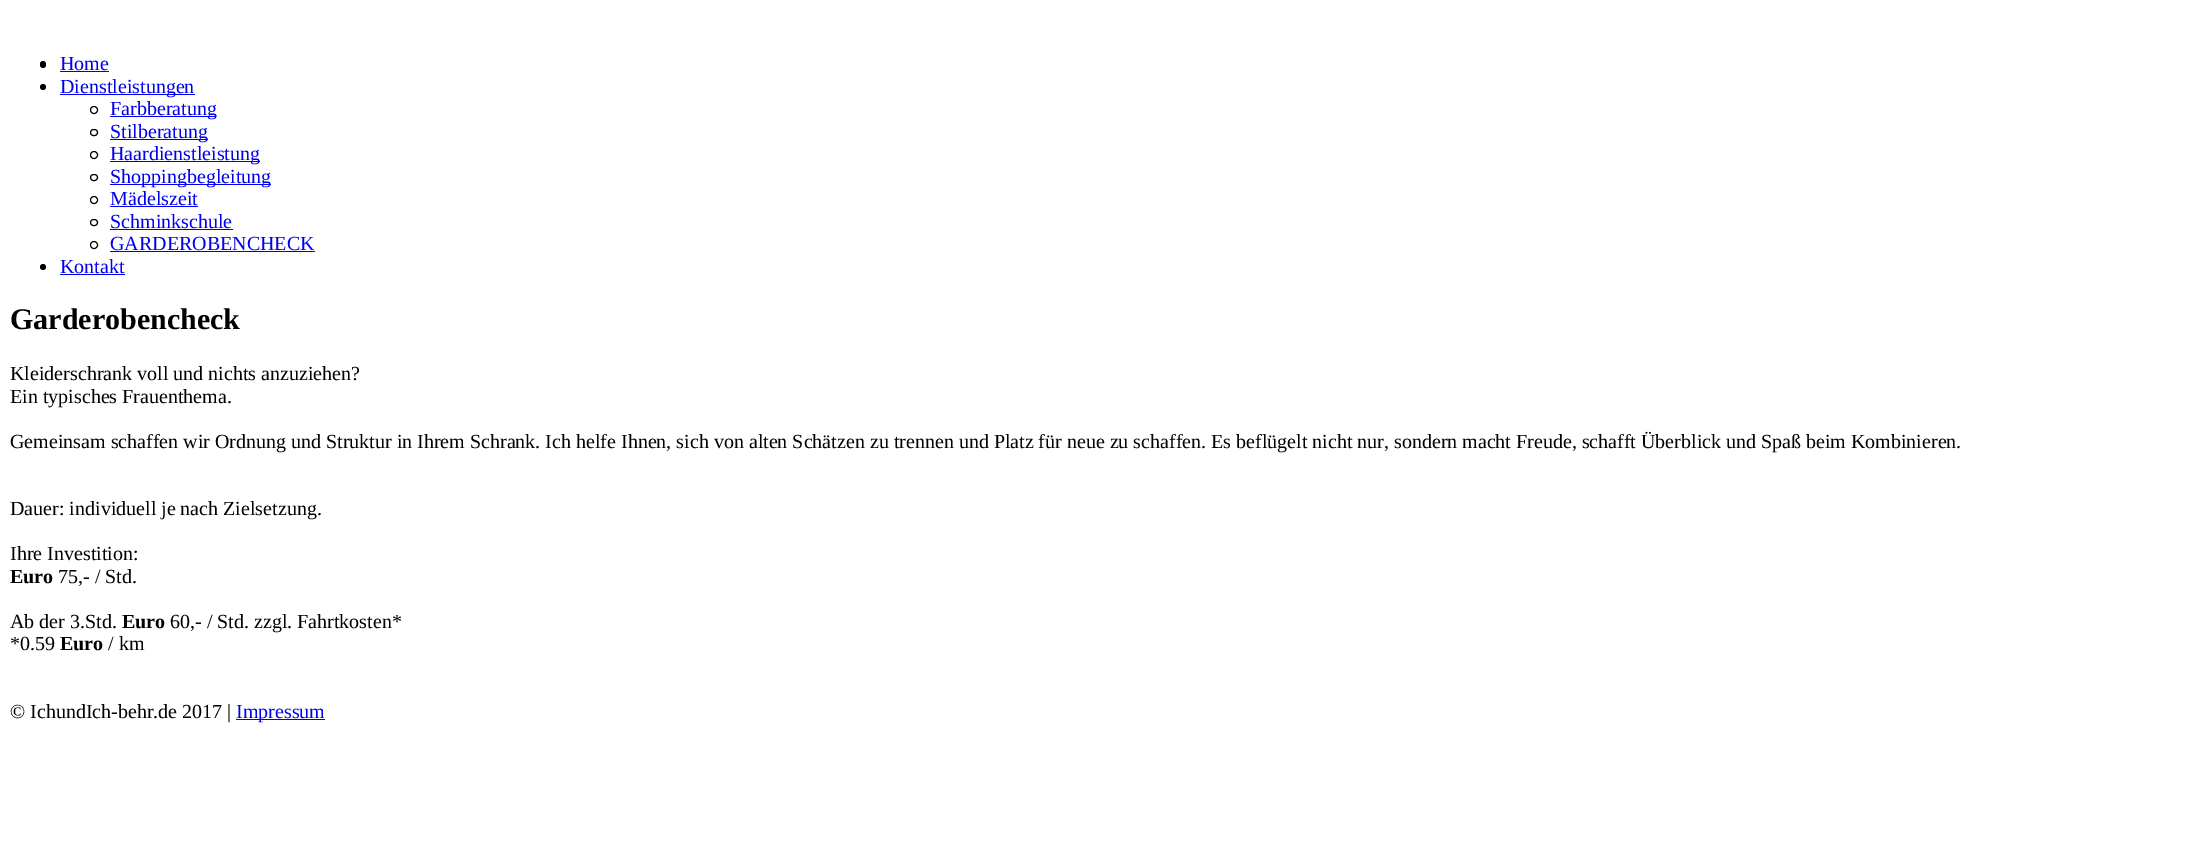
%!PS
<< /PageSize [2206 866] >> setpagedevice
/rgb { 3 { 255 div 3 1 roll } repeat setrgbcolor } def
/font { [ exch dup neg 0 0 3 -1 roll 0 0 ] selectfont } def
/text { moveto show } def
/circle { newpath 0 360 arc closepath } def
/roundrect { 5 dict begin { /r /h /w /y /x } { exch def } forall
  x r add y moveto x w add y 2 copy h add r arct x w add y h add x 1 index r arct
  x y h add x y r arct x y 2 copy exch w add exch r arct closepath end } def
0 866 translate 1 -1 scale
4 setmiterlimit
255 255 255 rgb
0 0 2206 866 rectfill
0 0 0 rgb
40 61 6 7 3 roundrect fill
0 0 238 rgb
60 71 49 1 rectfill
0 0 0 rgb
43 87 3 circle fill
0 0 238 rgb
60 94 135 1 rectfill
0 0 0 rgb
94 110 3.5 circle stroke
0 0 238 rgb
110 116 106 1 rectfill
0 0 0 rgb
90.5 129.5 7 6 3 roundrect stroke
0 0 238 rgb
110 139 98 1 rectfill
0 0 0 rgb
94 155 3.5 circle stroke
0 0 238 rgb
110 161 150 1 rectfill
0 0 0 rgb
90.5 174.5 7 6 3 roundrect stroke
0 0 238 rgb
110 184 161 1 rectfill
0 0 0 rgb
94 200 3.5 circle stroke
0 0 238 rgb
110 206 88 1 rectfill
0 0 0 rgb
90.5 219.5 7 6 3 roundrect stroke
0 0 238 rgb
110 229 123 1 rectfill
0 0 0 rgb
94 245 3.5 circle stroke
0 0 238 rgb
110 251 205 1 rectfill
0 0 0 rgb
43 267 3 circle fill
0 0 238 rgb
60 274 65 1 rectfill
236 719 89 1 rectfill
/LiberationSerif-Regular 20 font
(Home) 60 70 text
(Dienstleistungen) 60 93 text
(Farbberatung) 110 115 text
(Stilberatung) 110 138 text
(Haardienstleistung) 110 160 text
(Shoppingbegleitung) 110 183 text
(Mädelszeit) 110 205 text
(Schminkschule) 110 228 text
(GARDEROBENCHECK) 110 250 text
(Kontakt) 60 273 text
/LiberationSerif-Bold 30 font
0 0 0 rgb
(Garderobencheck) 10 329 text
/LiberationSerif-Regular 20 font
(Kleiderschrank voll und nichts anzuziehen?) 10 380 text
(Ein typisches Frauenthema.) 10 403 text
(Gemeinsam schaffen wir Ordnung und Struktur in Ihrem Schrank. Ich helfe Ihnen, sich von alten Schätzen zu trennen und Platz für neue zu schaffen. Es beflügelt nicht nur, sondern macht Freude, schafft Überblick und Spaß beim Kombinieren.) 10 448 text
(Dauer: individuell je nach Zielsetzung.) 10 515 text
(Ihre Investition:) 10 560 text
/LiberationSerif-Bold 20 font
(Euro) 10 583 text
/LiberationSerif-Regular 20 font
(75,- / Std.) 58 583 text
(Ab der 3.Std.) 10 628 text
/LiberationSerif-Bold 20 font
(Euro) 122 628 text
/LiberationSerif-Regular 20 font
(60,- / Std. zzgl. Fahrtkosten*) 170 628 text
(*0.59) 10 650 text
/LiberationSerif-Bold 20 font
(Euro) 60 650 text
/LiberationSerif-Regular 20 font
(/ km) 108 650 text
(© IchundIch-behr.de 2017 |) 10 718 text
0 0 238 rgb
(Impressum) 236 718 text
showpage
